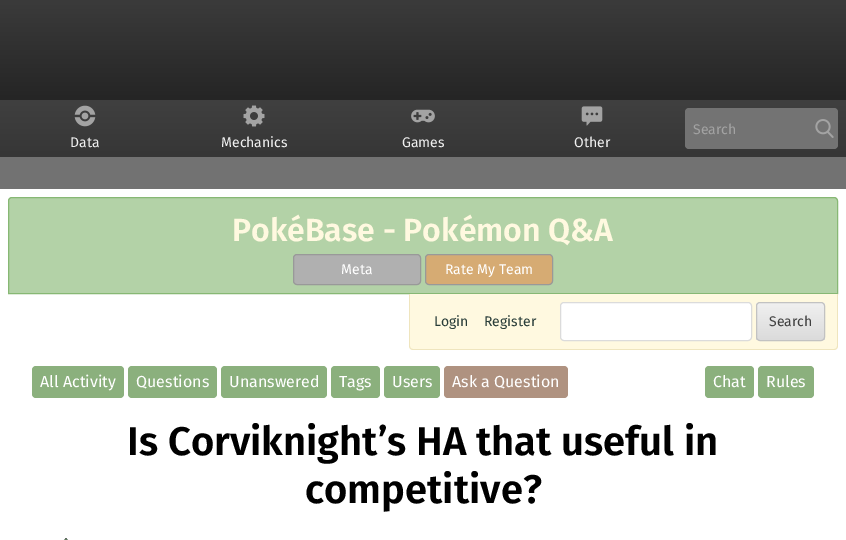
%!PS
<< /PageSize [846 540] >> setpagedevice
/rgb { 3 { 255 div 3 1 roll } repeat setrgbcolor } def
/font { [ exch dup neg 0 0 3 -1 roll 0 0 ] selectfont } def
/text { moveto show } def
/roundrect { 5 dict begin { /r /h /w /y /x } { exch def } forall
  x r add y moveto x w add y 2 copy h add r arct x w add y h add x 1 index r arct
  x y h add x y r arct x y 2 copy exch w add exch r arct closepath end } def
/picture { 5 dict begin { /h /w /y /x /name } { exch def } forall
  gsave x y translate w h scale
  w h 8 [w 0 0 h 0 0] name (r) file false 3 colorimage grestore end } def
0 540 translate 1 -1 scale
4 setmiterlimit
114 114 114 rgb
0 0 846 540 rectfill
gsave 0 0 moveto 846 0 rlineto 0 100 rlineto -846 0 rlineto closepath clip newpath
<< /ShadingType 2 /ColorSpace /DeviceRGB /Coords [423 0 423 124] /Extend [true true] /Function << /FunctionType 2 /Domain [0 1] /C0 [0.231 0.231 0.231] /C1 [0.125 0.125 0.125] /N 1 >> >> shfill grestore
gsave 0 100 moveto 846 0 rlineto 0 57 rlineto -846 0 rlineto closepath clip newpath
<< /ShadingType 2 /ColorSpace /DeviceRGB /Coords [423 100 423 157] /Extend [true true] /Function << /FunctionType 2 /Domain [0 1] /C0 [0.251 0.251 0.251] /C1 [0.212 0.212 0.212] /N 1 >> >> shfill grestore
115 115 115 rgb
685 108 153 41 4 roundrect fill
(img_01.rgb) 815 119 19 19 picture
(img_02.rgb) 74 105 22 22 picture
(img_03.rgb) 243 105 22 22 picture
(img_04.rgb) 411 109 24 14 picture
(img_05.rgb) 581 106 22 20 picture
255 255 255 rgb
0 189 846 351 rectfill
179 210 167 rgb
12 197.5 moveto 822 0 rlineto 2 0 3.5 1.5 3.5 3.5 rcurveto 0 92.5 rlineto -829 0 rlineto 0 -92.5 rlineto 0 -2 1.5 -3.5 3.5 -3.5 rcurveto closepath gsave fill grestore
135 184 116 rgb
stroke
176 176 176 rgb
293.5 254.5 127 30 3.5 roundrect gsave fill grestore
153 153 153 rgb
stroke
214 171 115 rgb
425.5 254.5 127 30 3.5 roundrect gsave fill grestore
153 153 153 rgb
stroke
255 249 224 rgb
409 294 moveto 429 0 rlineto 0 52 rlineto 0 2 -2 4 -4 4 rcurveto -421 0 rlineto -2 0 -4 -2 -4 -4 rcurveto closepath fill
239 229 190 rgb
409 294 moveto 429 0 rlineto 0 52 rlineto 0 2 -2 4 -4 4 rcurveto -421 0 rlineto -2 0 -4 -2 -4 -4 rcurveto closepath 410 294 moveto 427 0 rlineto 0 52 rlineto 0 2 -1 3 -3 3 rcurveto -421 0 rlineto -2 0 -3 -1 -3 -3 rcurveto closepath eofill
255 255 255 rgb
560.5 302.5 191 38 3.5 roundrect gsave fill grestore
219 219 219 rgb
stroke
gsave
756 302 69 39 4 roundrect clip newpath
gsave 756 303 moveto 69 0 rlineto 0 37 rlineto -69 0 rlineto closepath clip newpath
<< /ShadingType 2 /ColorSpace /DeviceRGB /Coords [791 303 791 340] /Extend [true true] /Function << /FunctionType 2 /Domain [0 1] /C0 [0.941 0.941 0.941] /C1 [0.859 0.859 0.859] /N 1 >> >> shfill grestore
grestore
194 194 194 rgb
756.5 302.5 68 38 3.5 roundrect stroke
139 176 125 rgb
32 366 92 32 4 roundrect fill
128 366 89 32 4 roundrect fill
221 366 106 32 4 roundrect fill
331 366 49 32 4 roundrect fill
384 366 56 32 4 roundrect fill
175 146 128 rgb
444 366 124 32 4 roundrect fill
139 176 125 rgb
705 366 49 32 4 roundrect fill
758 366 56 32 4 roundrect fill
(img_06.rgb) 64 538 4 2 picture
/FiraSans-Regular 14 font
163 163 163 rgb
(Search) 693 134 text
240 240 240 rgb
(Data) 70 147 text
(Mechanics) 221 147 text
(Games) 402 147 text
(Other) 574 147 text
/FiraSans-SemiBold 32 font
255 249 224 rgb
(PokéBase - Pokémon Q&A) 232 241 text
/FiraSans-Regular 14 font
255 255 255 rgb
(Meta) 341 274 text
(Rate My Team) 445 274 text
41 61 57 rgb
(Login) 434 326 text
(Register) 484 326 text
64 64 64 rgb
(Search) 769 326 text
/FiraSans-Regular 16 font
255 255 255 rgb
(All Activity) 40 387 text
(Questions) 136 387 text
(Unanswered) 229 387 text
(Tags) 339 387 text
(Users) 392 387 text
(Ask a Question) 452 387 text
(Chat) 713 387 text
(Rules) 766 387 text
/FiraSans-SemiBold 40 font
0 0 0 rgb
(Is Corviknight’s HA that useful in) 127 455 text
(competitive?) 305 503 text
showpage
